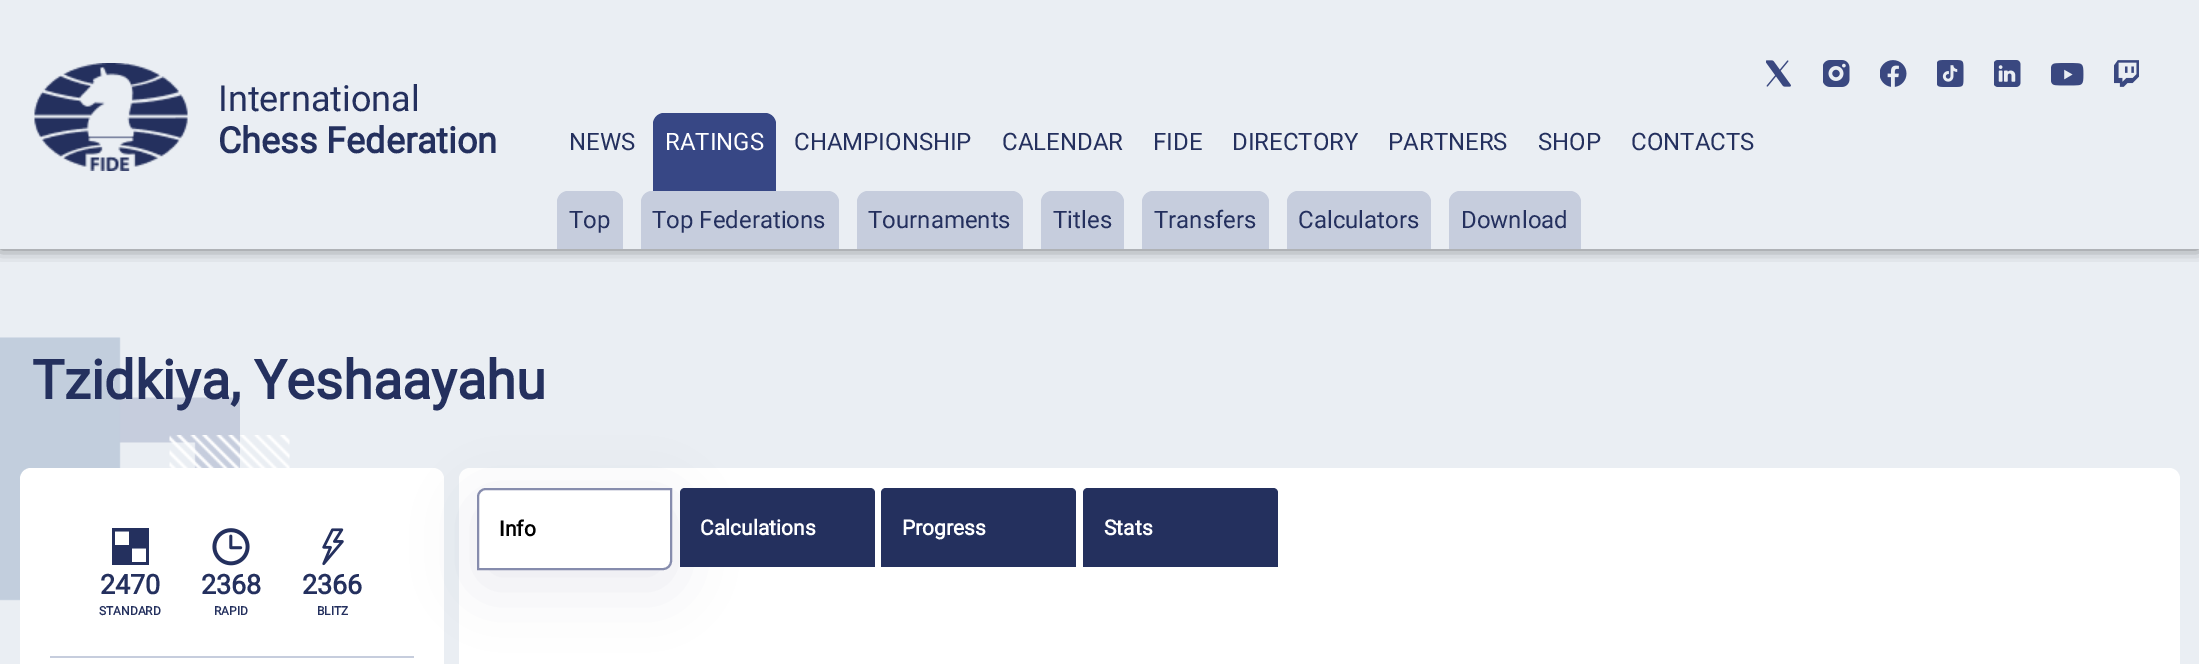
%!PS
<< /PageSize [2199 664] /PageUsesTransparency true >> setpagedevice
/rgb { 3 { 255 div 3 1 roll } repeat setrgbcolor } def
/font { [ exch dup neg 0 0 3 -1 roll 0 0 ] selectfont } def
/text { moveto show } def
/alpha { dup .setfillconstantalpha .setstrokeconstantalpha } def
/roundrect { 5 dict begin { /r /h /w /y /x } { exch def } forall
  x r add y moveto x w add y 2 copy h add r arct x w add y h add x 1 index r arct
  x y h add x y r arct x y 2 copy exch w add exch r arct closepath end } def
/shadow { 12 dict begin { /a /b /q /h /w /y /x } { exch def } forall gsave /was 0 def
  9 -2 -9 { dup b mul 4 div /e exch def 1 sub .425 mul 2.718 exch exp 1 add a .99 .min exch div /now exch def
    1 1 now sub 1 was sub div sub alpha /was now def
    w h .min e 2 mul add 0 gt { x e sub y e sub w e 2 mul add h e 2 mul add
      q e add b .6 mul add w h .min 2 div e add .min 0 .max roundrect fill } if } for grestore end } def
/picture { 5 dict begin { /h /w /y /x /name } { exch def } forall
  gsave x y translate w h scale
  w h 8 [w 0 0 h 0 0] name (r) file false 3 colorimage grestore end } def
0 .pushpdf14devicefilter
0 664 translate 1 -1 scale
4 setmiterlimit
234 238 243 rgb
0 0 2199 664 rectfill
gsave
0 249 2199 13 rectclip
0 0 0 rgb
0 0 2199 249 0 7.5 0.5 shadow
grestore
(img_01.rgb) 1766 60 25 27 picture
(img_02.rgb) 1823 60 27 27 picture
(img_03.rgb) 1880 60 27 27 picture
(img_04.rgb) 1937 60 27 27 picture
(img_05.rgb) 1994 60 27 27 picture
(img_06.rgb) 2051 63 33 23 picture
(img_07.rgb) 2114 60 25 27 picture
(img_08.rgb) 34 63 154 108 picture
55 71 133 rgb
664 113 moveto 101 0 rlineto 6 0 11 5 11 11 rcurveto 0 125 rlineto -123 0 rlineto 0 -125 rlineto 0 -6 5 -11 11 -11 rcurveto closepath fill
198 205 221 rgb
568 191 moveto 44 0 rlineto 6 0 11 5 11 11 rcurveto 0 47 rlineto -66 0 rlineto 0 -47 rlineto 0 -6 5 -11 11 -11 rcurveto closepath fill
652 191 moveto 176 0 rlineto 6 0 11 5 11 11 rcurveto 0 47 rlineto -198 0 rlineto 0 -47 rlineto 0 -6 5 -11 11 -11 rcurveto closepath fill
868 191 moveto 144 0 rlineto 6 0 11 5 11 11 rcurveto 0 47 rlineto -166 0 rlineto 0 -47 rlineto 0 -6 5 -11 11 -11 rcurveto closepath fill
1052 191 moveto 61 0 rlineto 6 0 11 5 11 11 rcurveto 0 47 rlineto -83 0 rlineto 0 -47 rlineto 0 -6 5 -11 11 -11 rcurveto closepath fill
1153 191 moveto 105 0 rlineto 6 0 11 5 11 11 rcurveto 0 47 rlineto -127 0 rlineto 0 -47 rlineto 0 -6 5 -11 11 -11 rcurveto closepath fill
1298 191 moveto 122 0 rlineto 6 0 11 5 11 11 rcurveto 0 47 rlineto -144 0 rlineto 0 -47 rlineto 0 -6 5 -11 11 -11 rcurveto closepath fill
1460 191 moveto 110 0 rlineto 6 0 11 5 11 11 rcurveto 0 47 rlineto -132 0 rlineto 0 -47 rlineto 0 -6 5 -11 11 -11 rcurveto closepath fill
(img_09.rgb) 0 337 240 264 picture
(img_10.rgb) 169 435 121 33 picture
255 255 255 rgb
459 468 1721 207 11 roundrect fill
20 468 424 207 11 roundrect fill
198 205 221 rgb
50 656 364 2 rectfill
36 48 94 rgb
477 503 195 82 9 30 0.1 shadow
255 255 255 rgb
486 489 moveto 185 0 rlineto 0 72 rlineto 0 4.5 -3.5 8 -8 8 rcurveto -185 0 rlineto 0 -72 rlineto 0 -4.5 3.5 -8 8 -8 rcurveto closepath gsave fill grestore
134 140 173 rgb
2 setlinewidth
stroke
36 48 94 rgb
685 488 moveto 185 0 rlineto 3 0 5 2 5 5 rcurveto 0 74 rlineto -195 0 rlineto 0 -74 rlineto 0 -3 2 -5 5 -5 rcurveto closepath fill
886 488 moveto 185 0 rlineto 3 0 5 2 5 5 rcurveto 0 74 rlineto -195 0 rlineto 0 -74 rlineto 0 -3 2 -5 5 -5 rcurveto closepath fill
1088 488 moveto 185 0 rlineto 3 0 5 2 5 5 rcurveto 0 74 rlineto -195 0 rlineto 0 -74 rlineto 0 -3 2 -5 5 -5 rcurveto closepath fill
gsave
112 528 37 37 rectclip
112 528 moveto 0 37.5 rlineto 37 0 rlineto 0 -37.5 rlineto closepath 115 531.5 moveto 14 0 rlineto 0 13.5 rlineto -14 0 rlineto closepath 146 562 moveto -14 0 rlineto 0 -13.5 rlineto 14 0 rlineto closepath eofill
grestore
(img_11.rgb) 212 528 38 38 picture
(img_12.rgb) 322 528 22 38 picture
/Roboto-Regular 36 font
(International) 218 111 text
/Roboto-Bold 36 font
(Chess Federation) 218 153 text
/Roboto-Regular 24 font
(NEWS) 569 150 text
255 255 255 rgb
(RATINGS) 665 150 text
36 48 94 rgb
(CHAMPIONSHIP) 794 150 text
(CALENDAR) 1002 150 text
(FIDE) 1153 150 text
(DIRECTORY) 1232 150 text
(PARTNERS) 1388 150 text
(SHOP) 1538 150 text
(CONTACTS) 1631 150 text
(Top) 569 228 text
(Top Federations) 652 228 text
(Tournaments) 868 228 text
(Titles) 1053 228 text
(Transfers) 1154 228 text
(Calculators) 1298 228 text
(Download) 1461 228 text
/Roboto-Bold 54 font
(Tzidkiya, Yeshaayahu) 32 399 text
/Roboto-Bold 21 font
0 0 0 rgb
(Info) 499 536 text
255 255 255 rgb
(Calculations) 700 535 text
(Progress) 902 535 text
(Stats) 1104 535 text
/Roboto-Bold 27 font
36 48 94 rgb
(2470) 100 594 text
/Roboto-Bold 12 font
(STANDARD) 99 615 text
/Roboto-Bold 27 font
(2368) 201 594 text
/Roboto-Bold 12 font
(RAPID) 214 615 text
/Roboto-Bold 27 font
(2366) 302 594 text
/Roboto-Bold 12 font
(BLITZ) 317 615 text
.poppdf14devicefilter showpage
